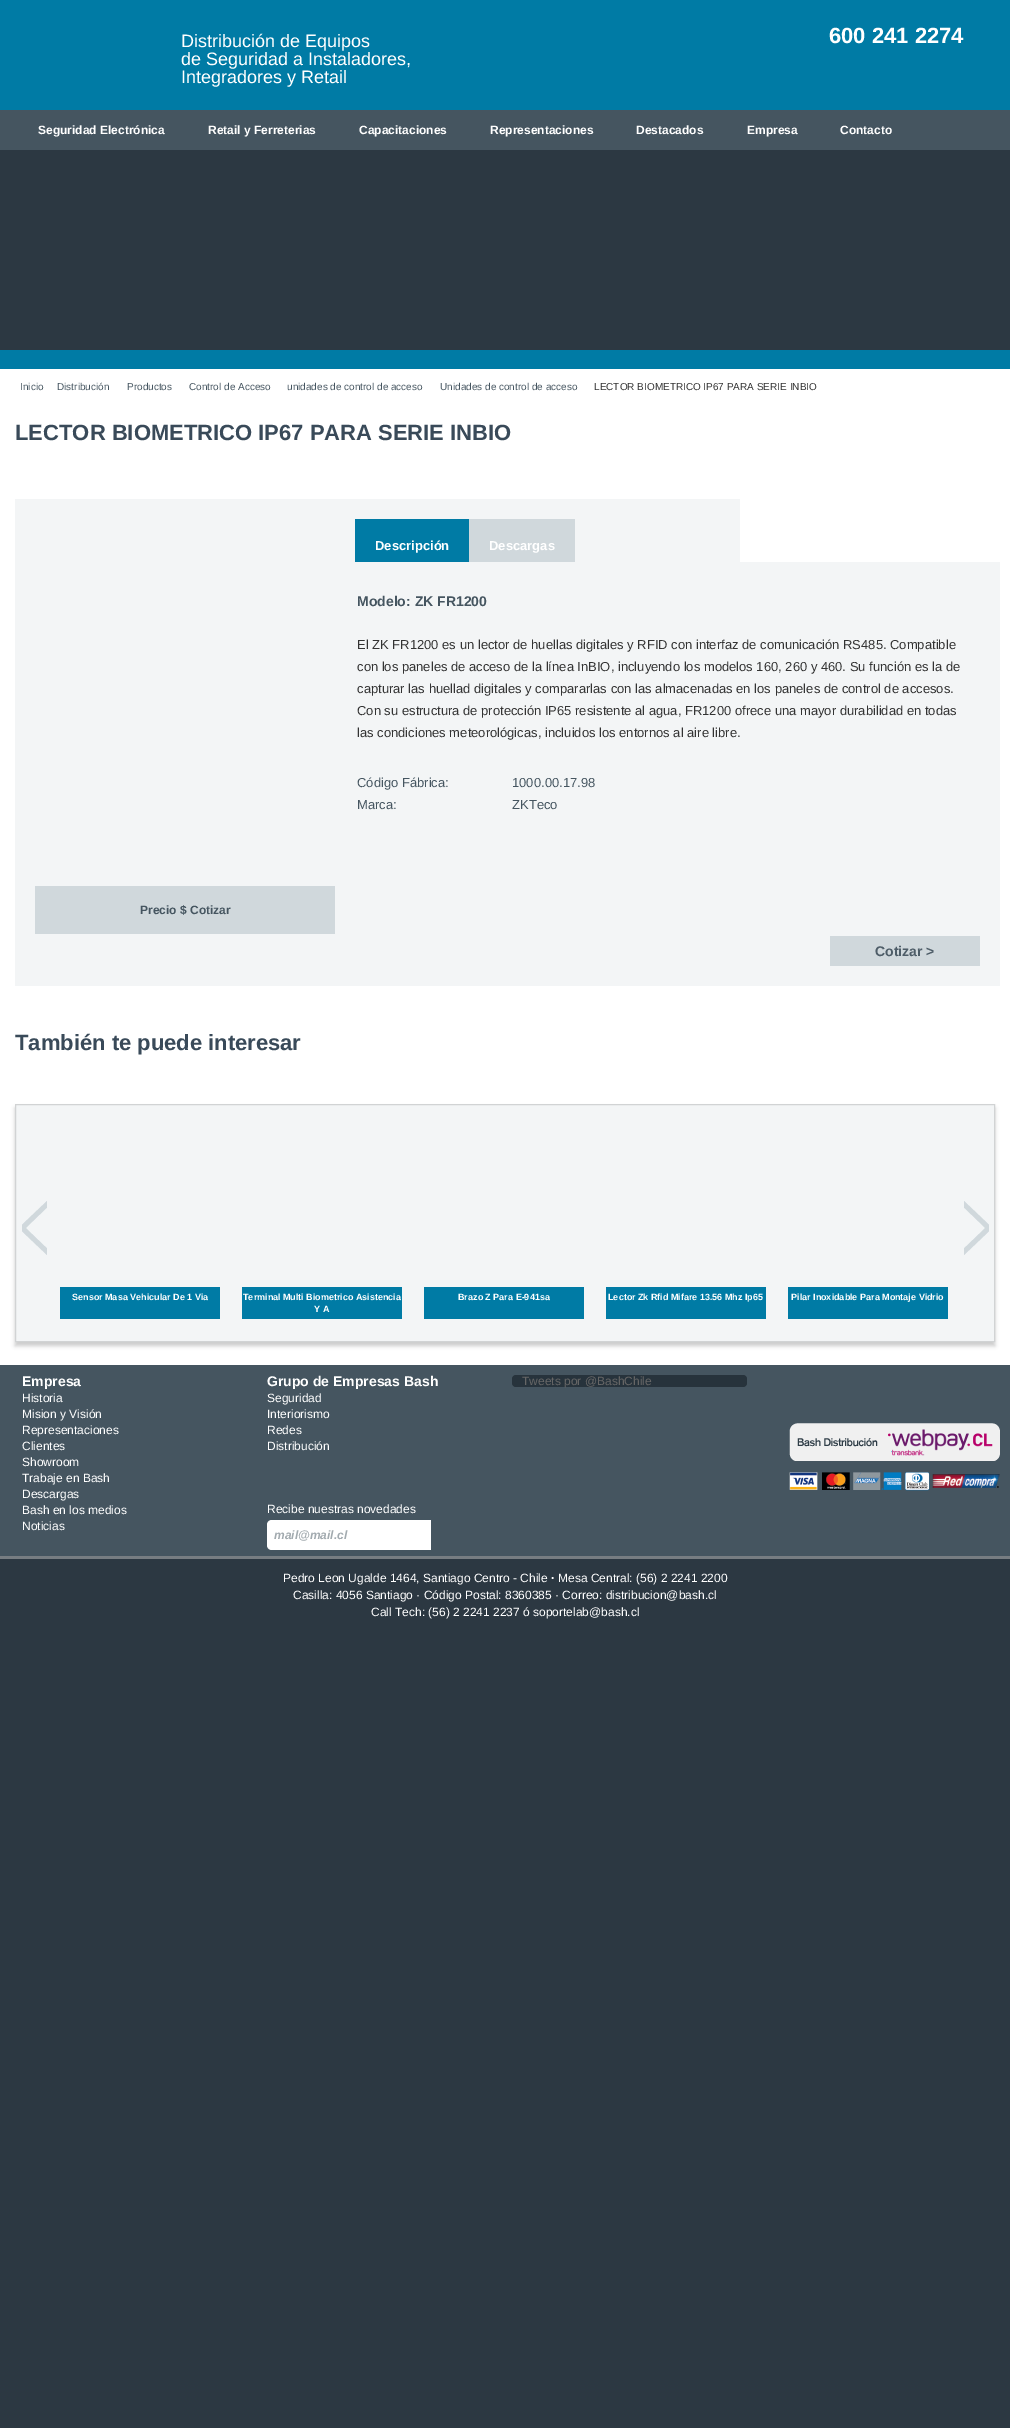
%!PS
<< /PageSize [1010 2428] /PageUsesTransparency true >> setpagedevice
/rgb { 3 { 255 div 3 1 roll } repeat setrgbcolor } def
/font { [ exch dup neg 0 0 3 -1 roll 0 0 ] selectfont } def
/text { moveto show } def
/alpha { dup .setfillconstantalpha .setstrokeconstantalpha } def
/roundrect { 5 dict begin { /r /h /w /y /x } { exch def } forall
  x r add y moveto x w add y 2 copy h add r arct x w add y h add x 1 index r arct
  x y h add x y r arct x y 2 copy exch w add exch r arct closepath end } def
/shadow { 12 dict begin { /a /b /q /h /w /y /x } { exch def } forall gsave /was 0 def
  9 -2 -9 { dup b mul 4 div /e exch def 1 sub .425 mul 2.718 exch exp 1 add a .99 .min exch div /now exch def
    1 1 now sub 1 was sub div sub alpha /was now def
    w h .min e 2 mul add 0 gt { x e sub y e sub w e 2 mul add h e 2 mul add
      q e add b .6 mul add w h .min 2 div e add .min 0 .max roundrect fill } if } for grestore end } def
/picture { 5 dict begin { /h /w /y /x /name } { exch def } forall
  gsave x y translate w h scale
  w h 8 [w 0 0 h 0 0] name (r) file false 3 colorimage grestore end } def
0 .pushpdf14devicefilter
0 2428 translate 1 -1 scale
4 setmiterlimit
44 56 66 rgb
0 0 1010 2428 rectfill
0 123 165 rgb
0 0 1010 110 rectfill
69 85 96 rgb
0 110 1010 40 rectfill
255 255 255 rgb
0 369 1010 996 rectfill
0 123 165 rgb
0 350 1010 19 rectfill
243 245 246 rgb
15 499 985 487 rectfill
255 255 255 rgb
740 499 260 63 rectfill
0 123 165 rgb
355 519 114 43 rectfill
208 216 220 rgb
469 519 106 43 rectfill
35 886 300 48 rectfill
830 936 150 30 rectfill
0 0 0 rgb
15 1108 980 238 0 2 0.2 shadow
243 245 246 rgb
15.5 1104.5 moveto 979 0 rlineto 0 237 rlineto -979 0 rlineto closepath gsave fill grestore
209 211 212 rgb
stroke
(img_01.rgb) 22 1201 25 54 picture
(img_02.rgb) 964 1201 25 54 picture
0 123 165 rgb
60 1287 160 32 rectfill
242 1287 160 32 rectfill
424 1287 160 32 rectfill
606 1287 160 32 rectfill
788 1287 160 32 rectfill
69 85 96 rgb
0 1365 1010 191 rectfill
119 125 130 rgb
0 1556 1010 3 rectfill
255 255 255 rgb
272 1520 moveto 159 0 rlineto 0 30 rlineto -159 0 rlineto -3 0 -5 -2 -5 -5 rcurveto 0 -20 rlineto 0 -3 2 -5 5 -5 rcurveto closepath fill
39 51 60 rgb
512 1375 235 12 4 roundrect fill
(img_03.rgb) 789 1423 211 38 picture
(img_04.rgb) 789 1472 211 19 picture
/LiberationSans-Regular 18 font
255 255 255 rgb
(Distribución de Equipos) 181 47 text
(de Seguridad a Instaladores,) 181 65 text
(Integradores y Retail) 181 83 text
/LiberationSans-Bold 22 font
(600 241 2274) 829 43 text
/LiberationSans-Bold 12 font
(Seguridad Electrónica) 38 134 text
(Retail y Ferreterias) 208 134 text
(Capacitaciones) 359 134 text
(Representaciones) 490 134 text
(Destacados) 636 134 text
(Empresa) 747 134 text
(Contacto) 840 134 text
/LiberationSans-Regular 10 font
69 85 96 rgb
(Inicio) 20 390 text
(Distribución) 57 390 text
(Productos) 127 390 text
(Control de Acceso) 189 390 text
(unidades de control de acceso) 287 390 text
(Unidades de control de acceso) 440 390 text
51 51 51 rgb
(LECTOR BIOMETRICO IP67 PARA SERIE INBIO) 594 390 text
/LiberationSans-Bold 22 font
57 74 89 rgb
(LECTOR BIOMETRICO IP67 PARA SERIE INBIO) 15 440 text
/LiberationSans-Bold 13 font
255 255 255 rgb
(Descripción) 375 550 text
(Descargas) 489 550 text
/LiberationSans-Bold 14 font
69 85 96 rgb
(Modelo: ZK FR1200) 357 606 text
/LiberationSans-Regular 13 font
51 51 51 rgb
(El ZK FR1200 es un lector de huellas digitales y RFID con interfaz de comunicación RS485. Compatible) 357 649 text
(con los paneles de acceso de la línea InBIO, incluyendo los modelos 160, 260 y 460. Su función es la de) 357 671 text
(capturar las huellad digitales y compararlas con las almacenadas en los paneles de control de accesos.) 357 693 text
(Con su estructura de protección IP65 resistente al agua, FR1200 ofrece una mayor durabilidad en todas) 357 715 text
(las condiciones meteorológicas, incluidos los entornos al aire libre.) 357 737 text
69 85 96 rgb
(Código Fábrica:) 357 787 text
(1000.00.17.98) 512 787 text
(Marca:) 357 809 text
(ZKTeco) 512 809 text
/LiberationSans-Bold 12 font
(Precio $ Cotizar) 140 914 text
/LiberationSans-Bold 14 font
78 93 104 rgb
(Cotizar >) 875 956 text
/LiberationSans-Bold 22 font
57 74 89 rgb
(También te puede interesar) 15 1050 text
/LiberationSans-Bold 9 font
255 255 255 rgb
(Sensor Masa Vehicular De 1 Via) 72 1300 text
(Terminal Multi Biometrico Asistencia) 243 1300 text
(Y A) 314 1312 text
(Brazo Z Para E-941sa) 458 1300 text
(Lector Zk Rfid Mifare 13.56 Mhz Ip65) 608 1300 text
(Pilar Inoxidable Para Montaje Vidrio) 791 1300 text
/LiberationSans-Bold 14 font
(Empresa) 22 1386 text
/LiberationSans-Regular 12 font
(Historia) 22 1402 text
(Mision y Visión) 22 1418 text
(Representaciones) 22 1434 text
(Clientes) 22 1450 text
(Showroom) 22 1466 text
(Trabaje en Bash) 22 1482 text
(Descargas) 22 1498 text
(Bash en los medios) 22 1514 text
(Noticias) 22 1530 text
/LiberationSans-Bold 14 font
(Grupo de Empresas Bash) 267 1386 text
/LiberationSans-Regular 12 font
(Seguridad) 267 1402 text
(Interiorismo) 267 1418 text
(Redes) 267 1434 text
(Distribución) 267 1450 text
(Recibe nuestras novedades) 267 1513 text
/LiberationSans-BoldItalic 12 font
162 170 175 rgb
(mail@mail.cl) 274 1539 text
/LiberationSans-Regular 12 font
102 102 102 rgb
(Tweets por @BashChile) 522 1385 text
255 255 255 rgb
(Pedro Leon Ugalde 1464, Santiago Centro - Chile) 283 1582 text
/LiberationSans-Bold 12 font
(·) 551 1582 text
/LiberationSans-Regular 12 font
(Mesa Central: \(56\) 2 2241 2200) 558 1582 text
(Casilla: 4056 Santiago · Código Postal: 8360385 · Correo: distribucion@bash.cl) 293 1599 text
(Call Tech: \(56\) 2 2241 2237 ó soportelab@bash.cl) 371 1616 text
.poppdf14devicefilter showpage
